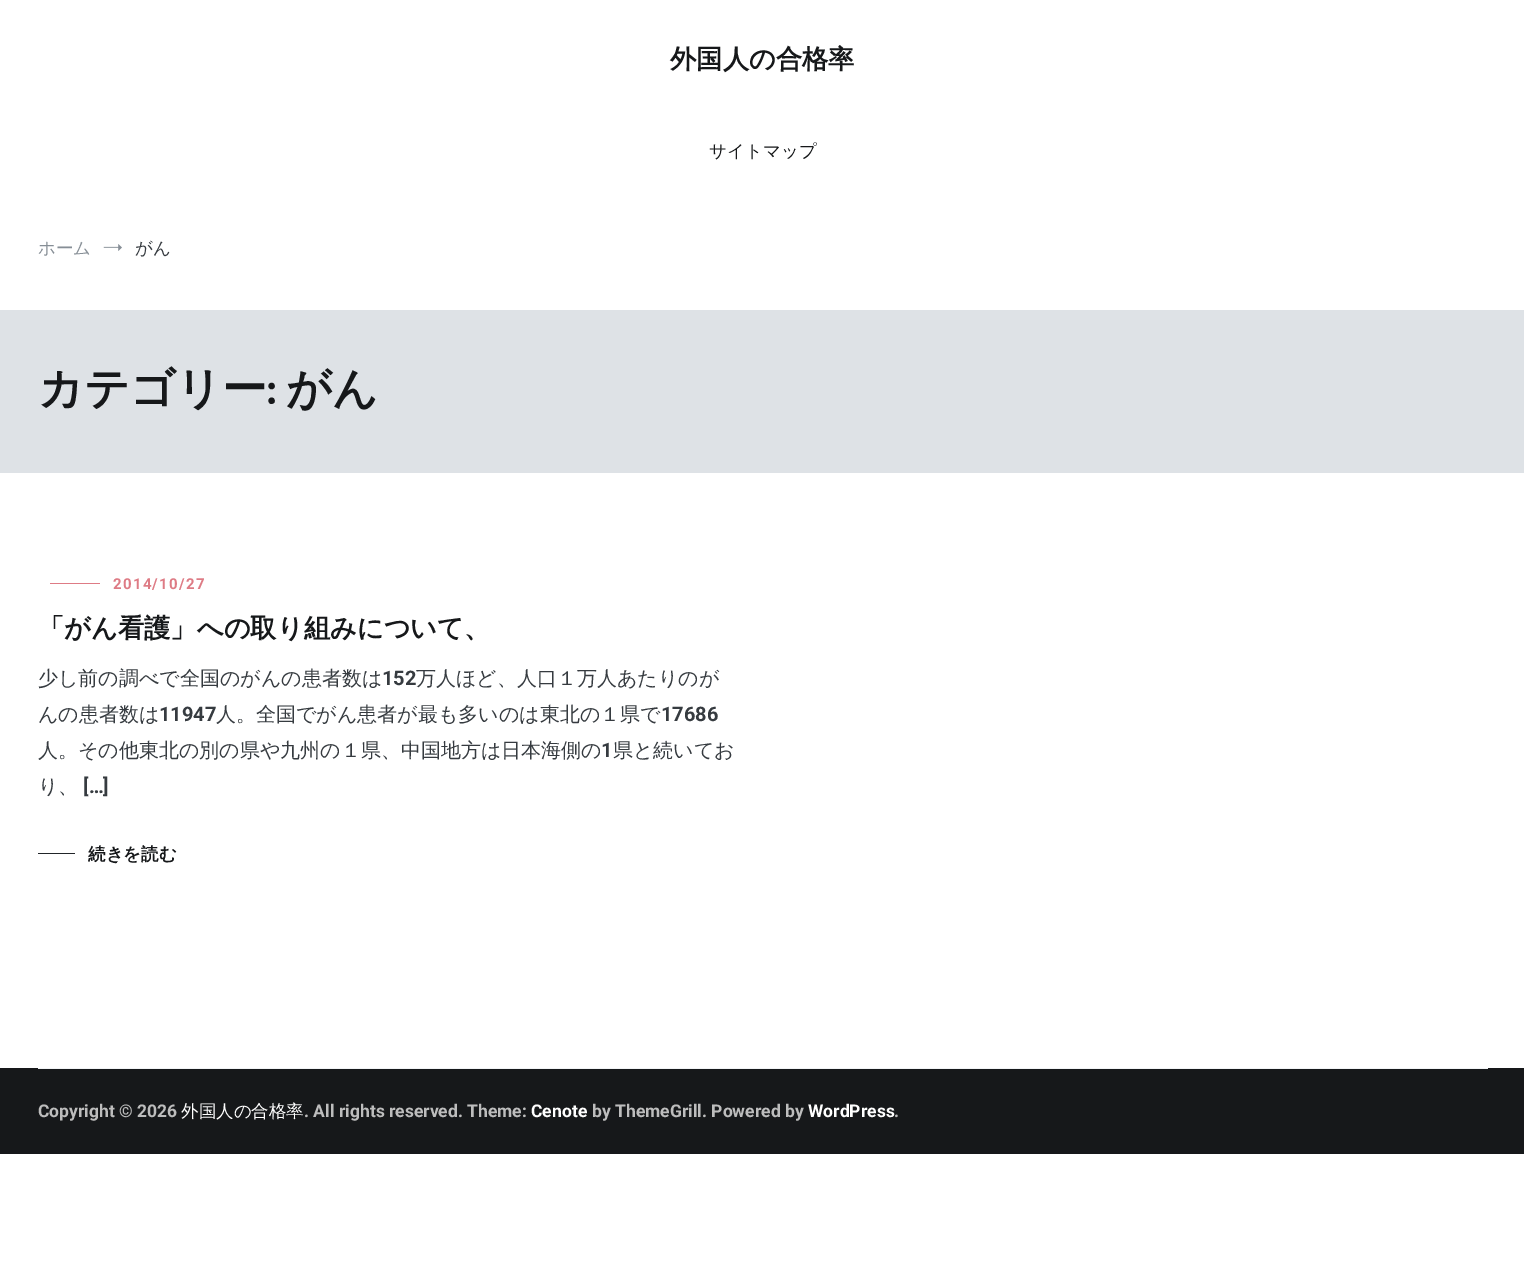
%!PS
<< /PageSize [1524 1277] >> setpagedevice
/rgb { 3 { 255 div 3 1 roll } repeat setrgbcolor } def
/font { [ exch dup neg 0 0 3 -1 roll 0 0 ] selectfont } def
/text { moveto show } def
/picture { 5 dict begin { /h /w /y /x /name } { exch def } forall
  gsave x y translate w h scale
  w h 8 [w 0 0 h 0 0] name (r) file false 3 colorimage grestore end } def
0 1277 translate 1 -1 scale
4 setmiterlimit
255 255 255 rgb
0 0 1524 1277 rectfill
(img_01.rgb) 103 244 19 7 picture
222 226 230 rgb
0 310 1524 163 rectfill
222 123 133 rgb
50 583 50 1 rectfill
33 37 41 rgb
38 853 37 1 rectfill
22 24 26 rgb
0 1068 1524 86 rectfill
241 243 245 rgb
38 1068 1450 1 rectfill
/WenQuanYiZenHei-Bold 26.25 font
22 24 26 rgb
(外国人の合格率) 670 68 text
/WenQuanYiZenHei-Medium 17.5 font
(サイトマップ) 709 157 text
134 142 150 rgb
(ホーム) 38 254 text
54 59 64 rgb
(がん) 135 254 text
/WenQuanYiZenHei-Bold 45 font
22 24 26 rgb
(カテゴリー) 38 404 text
/Catamaran-Bold 45 font
(:) 267 404 text
/WenQuanYiZenHei-Bold 45 font
(がん) 286 404 text
/Roboto-Bold 15 font
222 123 133 rgb
113 589 moveto 1.25 0 (2014/10/27) ashow
/WenQuanYiZenHei-Bold 26.25 font
22 24 26 rgb
(「がん看護」への取り組みについて、) 38 637 text
/WenQuanYiZenHei-Medium 20 font
54 59 64 rgb
(少し前の調べで全国のがんの患者数は) 38 685 text
/Roboto-Bold 20 font
(152) 382 685 text
/WenQuanYiZenHei-Medium 20 font
(万人ほど、人口１万人あたりのが) 416 685 text
(んの患者数は) 38 721 text
/Roboto-Bold 20 font
(11947) 159 721 text
/WenQuanYiZenHei-Medium 20 font
(人。全国でがん患者が最も多いのは東北の１県で) 216 721 text
/Roboto-Bold 20 font
(17686) 661 721 text
/WenQuanYiZenHei-Medium 20 font
(人。その他東北の別の県や九州の１県、中国地方は日本海側の) 38 757 text
/Roboto-Bold 20 font
(1) 601 757 text
/WenQuanYiZenHei-Medium 20 font
(県と続いてお) 613 757 text
(り、) 38 793 text
/Roboto-Bold 20 font
([…]) 83 793 text
/WenQuanYiZenHei-Bold 17.5 font
22 24 26 rgb
(続きを読む) 88 860 text
/Roboto-Bold 17.5 font
189 189 189 rgb
(Copyright © 2026) 38 1117 text
/WenQuanYiZenHei-Medium 17.5 font
255 255 255 rgb
(外国人の合格率) 181 1117 text
/Roboto-Bold 17.5 font
189 189 189 rgb
(. All rights reserved. Theme:) 304 1117 text
255 255 255 rgb
(Cenote) 531 1117 text
189 189 189 rgb
(by ThemeGrill. Powered by) 592 1117 text
255 255 255 rgb
(WordPress) 808 1117 text
189 189 189 rgb
(.) 894 1117 text
showpage
